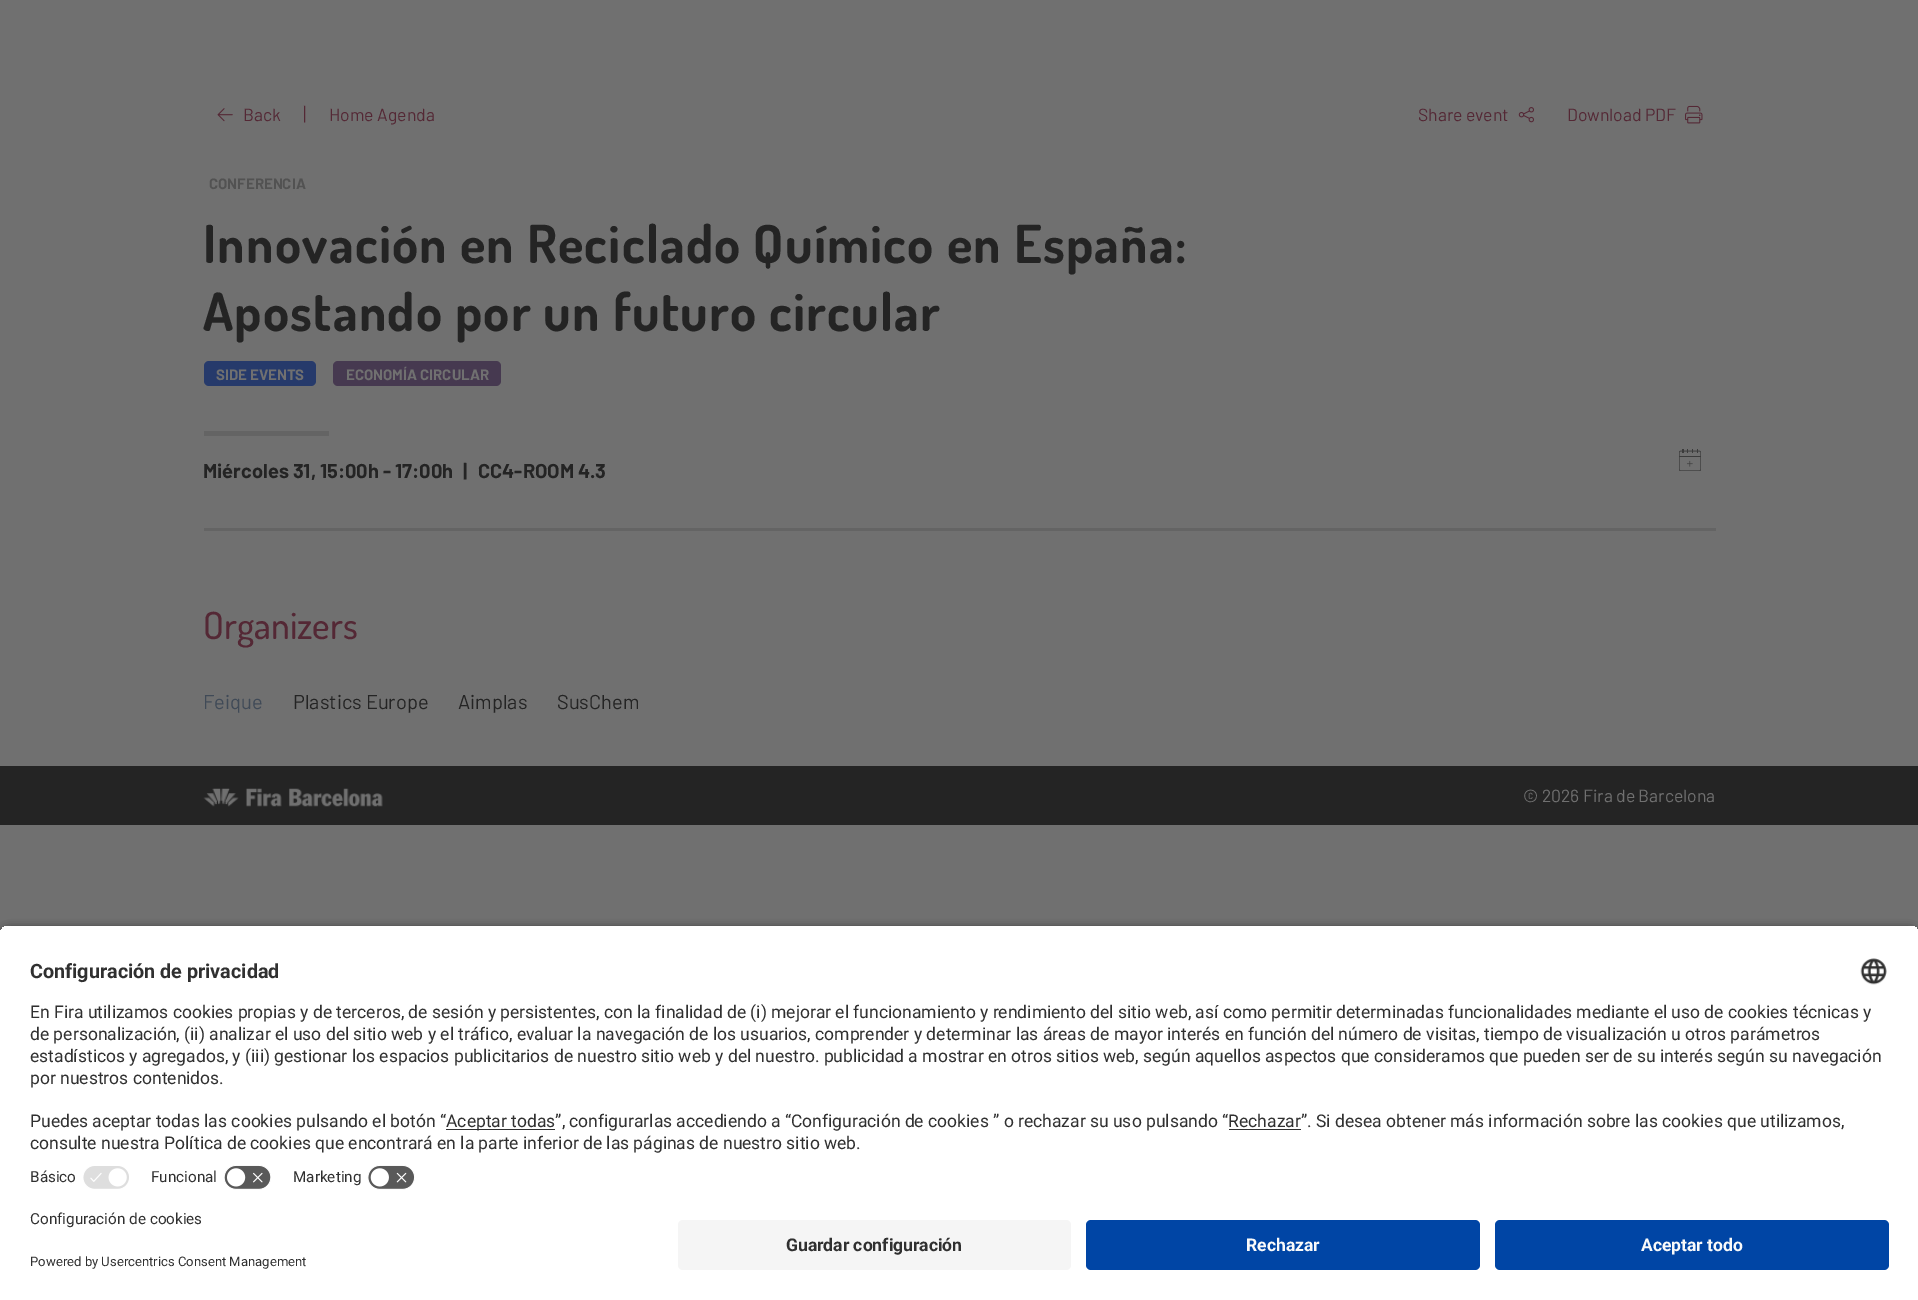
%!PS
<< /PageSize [1918 1300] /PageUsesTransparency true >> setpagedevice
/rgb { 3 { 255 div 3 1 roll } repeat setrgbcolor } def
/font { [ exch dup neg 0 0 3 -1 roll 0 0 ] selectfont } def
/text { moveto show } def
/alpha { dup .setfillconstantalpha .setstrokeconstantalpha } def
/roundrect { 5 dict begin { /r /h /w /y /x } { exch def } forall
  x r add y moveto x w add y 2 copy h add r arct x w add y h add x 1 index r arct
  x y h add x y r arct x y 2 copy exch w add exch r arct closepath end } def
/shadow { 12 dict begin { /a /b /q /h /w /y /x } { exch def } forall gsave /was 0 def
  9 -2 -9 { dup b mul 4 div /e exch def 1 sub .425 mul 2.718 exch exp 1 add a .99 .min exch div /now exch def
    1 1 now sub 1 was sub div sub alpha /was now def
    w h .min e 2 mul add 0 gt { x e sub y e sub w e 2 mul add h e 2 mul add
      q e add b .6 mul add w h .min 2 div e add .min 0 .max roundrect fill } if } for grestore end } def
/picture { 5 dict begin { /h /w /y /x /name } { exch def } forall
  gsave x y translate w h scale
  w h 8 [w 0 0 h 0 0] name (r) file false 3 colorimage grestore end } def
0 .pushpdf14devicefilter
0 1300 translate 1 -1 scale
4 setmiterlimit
112 112 112 rgb
0 0 1918 1300 rectfill
(img_01.rgb) 217 108 16 14 picture
(img_02.rgb) 1518 107 16 16 picture
(img_03.rgb) 1685 105 18 19 picture
38 58 107 rgb
204 361 112 25 5 roundrect fill
70 57 80 rgb
333 361 168 25 5 roundrect fill
100 100 100 rgb
204 431 125 5 rectfill
(img_04.rgb) 1679 449 22 22 picture
204 528 1512 3 rectfill
36 36 36 rgb
0 766 1918 59 rectfill
(img_05.rgb) 203 788 180 19 picture
0 0 0 rgb
0 929 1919 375 10 4.5 0.8 shadow
gsave
10 925 moveto 1899 0 rlineto 5.5 0 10 4.5 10 10 rcurveto 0 275 rlineto -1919 0 rlineto 0 -275 rlineto 0 -5.5 4.5 -10 10 -10 rcurveto closepath clip newpath
255 255 255 rgb
0 926 1918 284 rectfill
0 926 1918 234 rectfill
grestore
(img_06.rgb) 1860 958 27 27 picture
48 48 48 rgb
446 1129 109 1 rectfill
1229 1129 72 1 rectfill
(img_07.rgb) 83 1166 46 23 picture
(img_08.rgb) 224 1165 47 25 picture
(img_09.rgb) 367 1165 48 25 picture
255 255 255 rgb
0 1210 1918 90 rectfill
245 245 245 rgb
678 1220 393 50 5 roundrect fill
0 69 165 rgb
1086 1220 394 50 5 roundrect fill
1495 1220 394 50 5 roundrect fill
/Barlow-Regular 17.5 font
84 40 53 rgb
(Back) 243 121 text
/Barlow-Regular 20 font
(|) 303 121 text
/Barlow-Regular 17.5 font
(Home Agenda) 329 121 text
(Share event) 1418 121 text
(Download PDF) 1567 121 text
/Barlow-Bold 15 font
82 82 82 rgb
(CONFERENCIA) 209 189 text
/Dosis-Bold 52.5 font
36 36 36 rgb
203 263 moveto 1.25 0 (Innovación en Reciclado Químico en España:) ashow
203 331 moveto 1.25 0 (Apostando por un futuro circular) ashow
/Barlow-Bold 15 font
112 112 112 rgb
(SIDE EVENTS) 216 380 text
(ECONOMÍA CIRCULAR) 346 380 text
/Barlow-Bold 20 font
36 36 36 rgb
(Miércoles 31, 15:00h - 17:00h) 203 478 text
(|) 463 478 text
(CC4-ROOM 4.3) 478 478 text
/Dosis-Medium 37.5 font
84 40 53 rgb
(Organizers) 203 639 text
/Barlow-Regular 20 font
64 74 87 rgb
(Feique) 203 709 text
36 36 36 rgb
(Plastics Europe) 293 709 text
(Aimplas) 458 709 text
(SusChem) 557 709 text
/Barlow-Regular 17.5 font
112 112 112 rgb
(© 2026 Fira de Barcelona) 1523 802 text
/Roboto-Bold 19.75 font
48 48 48 rgb
(Configuración de privacidad) 30 978 text
/Roboto-Regular 17.5 font
(En Fira utilizamos cookies propias y de terceros, de sesión y persistentes, con la finalidad de \(i\) mejorar el funcionamiento y rendimiento del sitio web, así como permitir determinadas funcionalidades mediante el uso de cookies técnicas y) 30 1018 text
(de personalización, \(ii\) analizar el uso del sitio web y el tráfico, evaluar la navegación de los usuarios, comprender y determinar las áreas de mayor interés en función del número de visitas, tiempo de visualización u otros parámetros) 30 1040 text
(estadísticos y agregados, y \(iii\) gestionar los espacios publicitarios de nuestro sitio web y del nuestro. publicidad a mostrar en otros sitios web, según aquellos aspectos que consideramos que pueden ser de su interés según su navegación) 30 1062 text
(por nuestros contenidos.) 30 1084 text
(Puedes aceptar todas las cookies pulsando el botón “) 30 1127 text
(Aceptar todas”, configurarlas accediendo a “Configuración de cookies ” o rechazar su uso pulsando “Rechazar”. Si desea obtener más información sobre las cookies que utilizamos,) 446 1127 text
(consulte nuestra Política de cookies que encontrará en la parte inferior de las páginas de nuestro sitio web.) 30 1149 text
/Roboto-Regular 15.25 font
(Básico) 30 1182 text
(Funcional) 151 1182 text
(Marketing) 293 1182 text
(Configuración de cookies) 30 1224 text
/Roboto-Regular 13.1 font
(Powered by Usercentrics Consent Management) 30 1266 text
/Roboto-Bold 17.5 font
(Guardar configuración) 786 1251 text
250 250 250 rgb
(Rechazar) 1246 1251 text
(Aceptar todo) 1641 1251 text
.poppdf14devicefilter showpage
